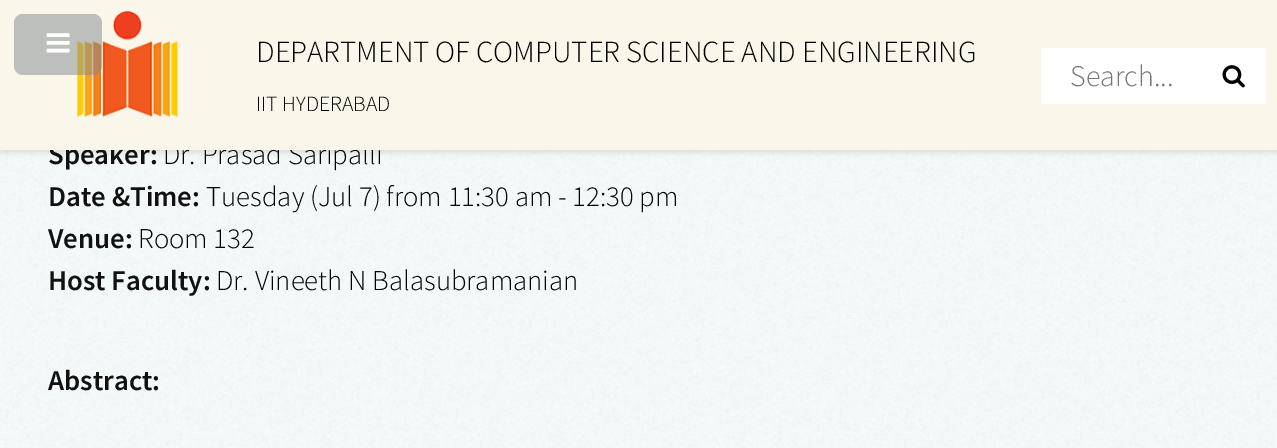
%!PS
<< /PageSize [1277 448] /PageUsesTransparency true >> setpagedevice
/rgb { 3 { 255 div 3 1 roll } repeat setrgbcolor } def
/font { [ exch dup neg 0 0 3 -1 roll 0 0 ] selectfont } def
/text { moveto show } def
/alpha { dup .setfillconstantalpha .setstrokeconstantalpha } def
/roundrect { 5 dict begin { /r /h /w /y /x } { exch def } forall
  x r add y moveto x w add y 2 copy h add r arct x w add y h add x 1 index r arct
  x y h add x y r arct x y 2 copy exch w add exch r arct closepath end } def
/shadow { 12 dict begin { /a /b /q /h /w /y /x } { exch def } forall gsave /was 0 def
  9 -2 -9 { dup b mul 4 div /e exch def 1 sub .425 mul 2.718 exch exp 1 add a .99 .min exch div /now exch def
    1 1 now sub 1 was sub div sub alpha /was now def
    w h .min e 2 mul add 0 gt { x e sub y e sub w e 2 mul add h e 2 mul add
      q e add b .6 mul add w h .min 2 div e add .min 0 .max roundrect fill } if } for grestore end } def
/picture { 5 dict begin { /h /w /y /x /name } { exch def } forall
  gsave x y translate w h scale
  w h 8 [w 0 0 h 0 0] name (r) file false 3 colorimage grestore end } def
0 .pushpdf14devicefilter
0 448 translate 1 -1 scale
4 setmiterlimit
245 250 250 rgb
0 0 1277 448 rectfill
(img_04.rgb) 0 150 1277 298 picture
0 0 0 rgb
0 3 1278 150 0 3 0.1 shadow
/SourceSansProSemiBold-SemiBold 28.75 font
17 17 17 rgb
(Speaker:) 48 164 text
/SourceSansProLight-Light 28.75 font
0 0 0 rgb
(Dr. Prasad Saripalli) 163 164 text
250 246 233 rgb
0 0 1277 150 rectfill
(img_02.rgb) 77 11 101 107 picture
0.5 alpha
128 136 144 rgb
14 14 88 61 9 roundrect fill
1 alpha
(img_01.rgb) 46 33 24 20 picture
255 255 255 rgb
1041 48 225 56 rectfill
(img_03.rgb) 1222 65 23 23 picture
/SourceSansProLight-Light 30 font
117 117 117 rgb
(Search...) 1070 86 text
/SourceSansProLight-Light 21.75 font
0 0 0 rgb
(IIT HYDERABAD) 256 111 text
/SourceSansProLight-Light 30.7 font
(DEPARTMENT OF COMPUTER SCIENCE AND ENGINEERING) 256 62 text
/SourceSansProSemiBold-SemiBold 28.75 font
17 17 17 rgb
(Date &Time:) 48 206 text
/SourceSansProLight-Light 28.75 font
0 0 0 rgb
(Tuesday \(Jul 7\) from 11:30 am - 12:30 pm) 206 206 text
/SourceSansProSemiBold-SemiBold 28.75 font
17 17 17 rgb
(Venue:) 48 248 text
/SourceSansProLight-Light 28.75 font
0 0 0 rgb
(Room 132) 138 248 text
/SourceSansProSemiBold-SemiBold 28.75 font
17 17 17 rgb
(Host Faculty:) 48 290 text
/SourceSansProLight-Light 28.75 font
0 0 0 rgb
(Dr. Vineeth N Balasubramanian) 216 290 text
/SourceSansProSemiBold-SemiBold 28.75 font
17 17 17 rgb
(Abstract:) 48 390 text
.poppdf14devicefilter showpage
